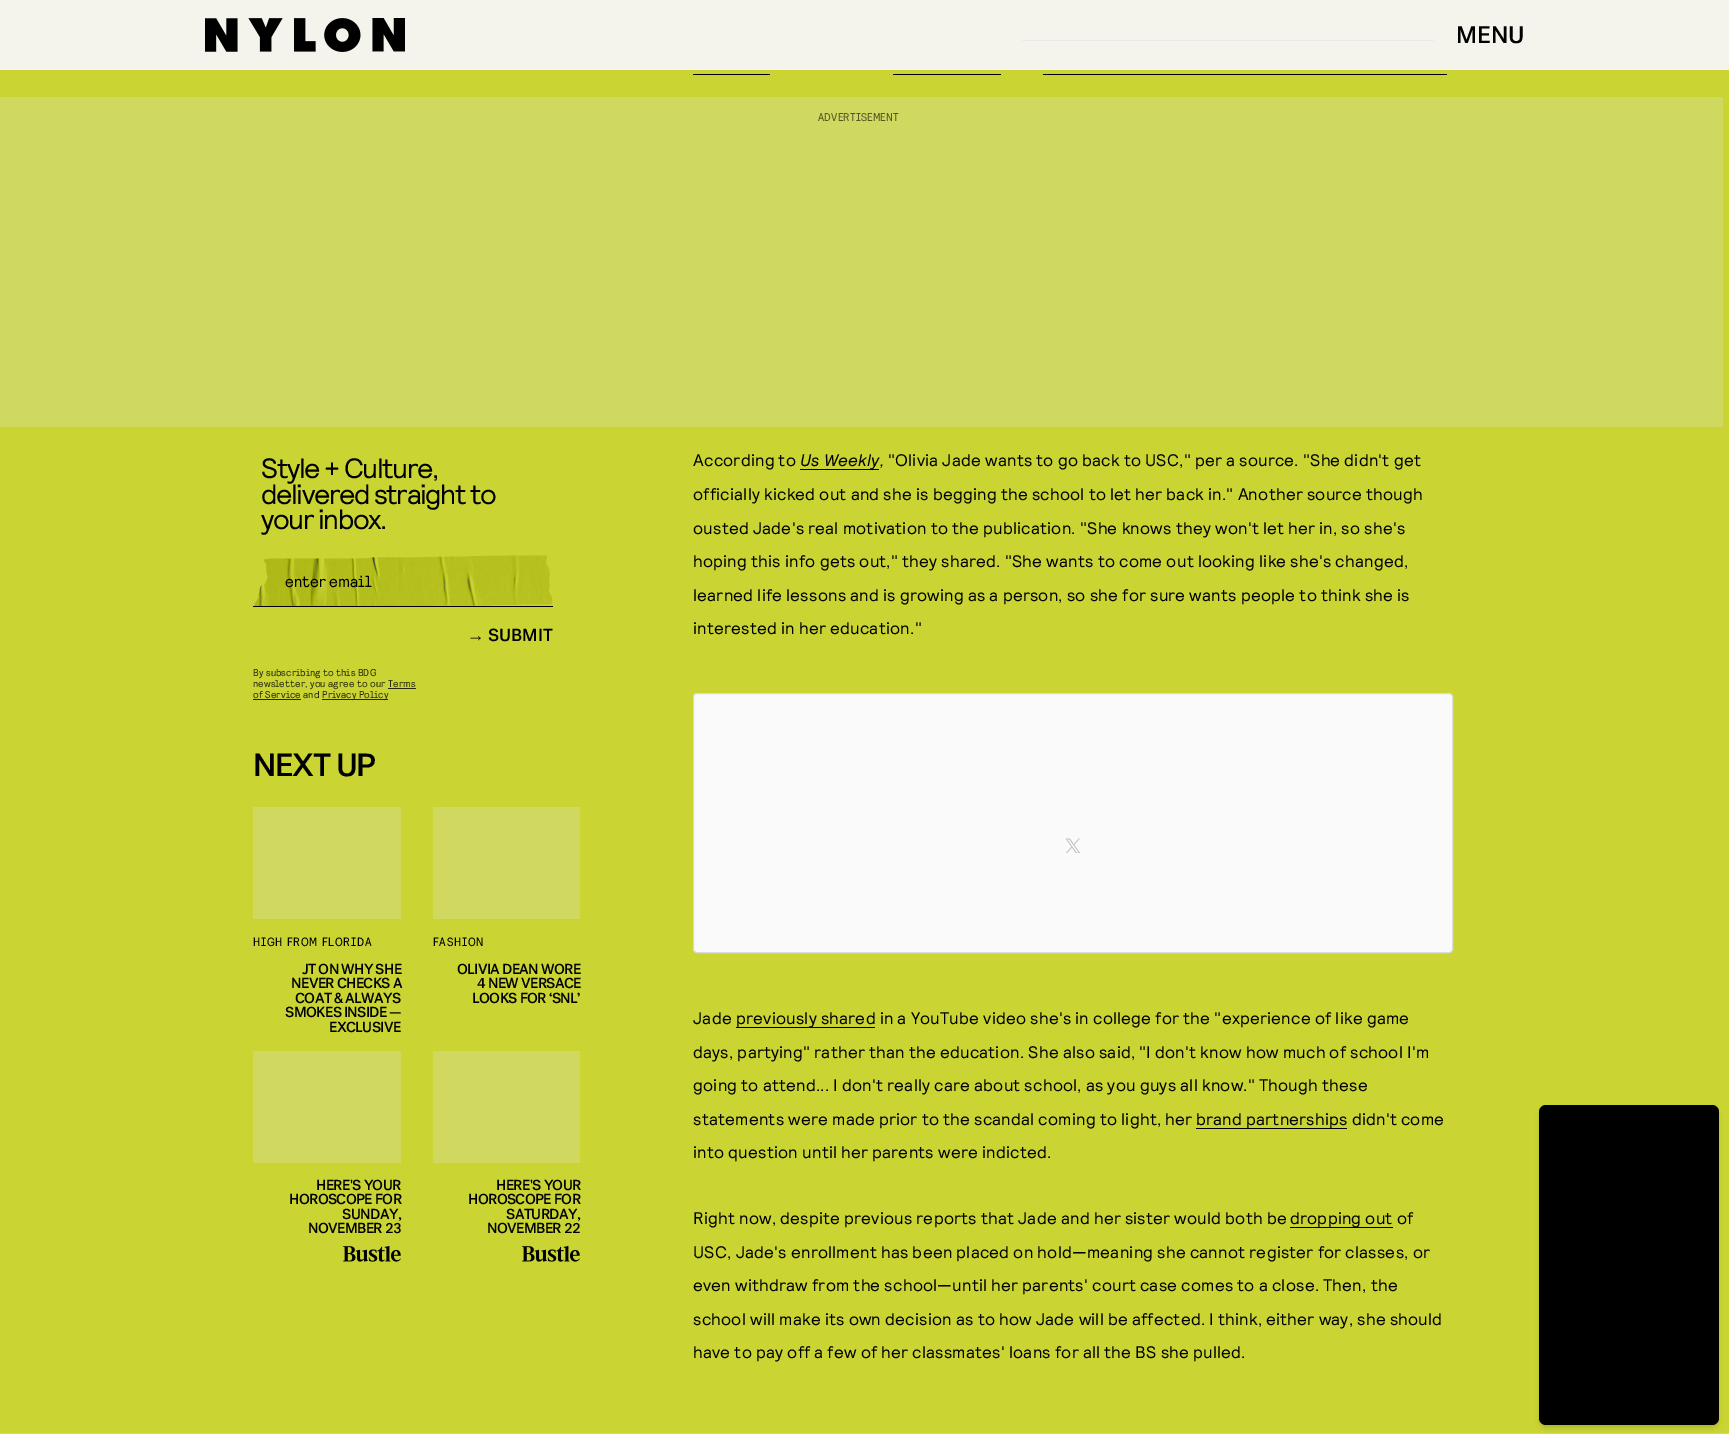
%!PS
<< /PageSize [1729 1435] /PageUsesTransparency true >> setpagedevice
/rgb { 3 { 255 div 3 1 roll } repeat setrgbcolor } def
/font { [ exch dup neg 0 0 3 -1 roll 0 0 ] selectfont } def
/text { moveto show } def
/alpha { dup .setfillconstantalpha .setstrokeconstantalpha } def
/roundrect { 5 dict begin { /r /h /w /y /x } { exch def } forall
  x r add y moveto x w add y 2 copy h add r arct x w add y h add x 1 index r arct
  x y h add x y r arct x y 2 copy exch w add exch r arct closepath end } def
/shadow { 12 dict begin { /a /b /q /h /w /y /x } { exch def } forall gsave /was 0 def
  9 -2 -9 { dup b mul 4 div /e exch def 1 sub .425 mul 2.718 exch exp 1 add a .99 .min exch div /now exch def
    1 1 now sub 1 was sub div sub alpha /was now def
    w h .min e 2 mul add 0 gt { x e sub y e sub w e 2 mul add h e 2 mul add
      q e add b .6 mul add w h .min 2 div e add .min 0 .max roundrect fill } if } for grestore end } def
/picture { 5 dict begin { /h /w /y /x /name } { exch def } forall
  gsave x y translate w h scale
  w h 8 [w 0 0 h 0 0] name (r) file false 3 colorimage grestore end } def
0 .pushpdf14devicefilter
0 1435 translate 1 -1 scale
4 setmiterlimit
255 255 255 rgb
0 0 1729 1435 rectfill
202 213 51 rgb
0 0 1729 1433 rectfill
0 0 0 rgb
1022 40 412 1 rectfill
0.95 alpha
246 246 246 rgb
0 0 1729 70 rectfill
1 alpha
(img_01.rgb) 205 18 200 34 picture
0 0 0 rgb
693 74 77 1 rectfill
893 74 108 1 rectfill
1043 74 404 1 rectfill
207 217 95 rgb
0 97 1723 330 rectfill
(img_02.rgb) 253 555 300 51 picture
0 0 0 rgb
253 606 300 1 rectfill
40 43 10 rgb
388 688 28 1 rectfill
253 699 48 1 rectfill
322 699 66 1 rectfill
208 216 95 rgb
253 807 148 112 rectfill
433 807 147 112 rectfill
253 1051 148 112 rectfill
(img_03.rgb) 343 1246 58 16 picture
433 1051 147 112 rectfill
(img_03.rgb) 522 1246 58 16 picture
0 0 0 rgb
800 469 79 1 rectfill
250 250 250 rgb
693.5 693.5 759 259 3.5 roundrect gsave fill grestore
219 219 219 rgb
stroke
(img_04.rgb) 1065 838 15 15 picture
0 0 0 rgb
736 1027 139 1 rectfill
1196 1128 151 1 rectfill
1290 1227 103 1 rectfill
1541 1109 176 316 5 2 0.1 shadow
204 204 204 rgb
0 1433 1729 1 rectfill
0 0 0 rgb
1540 1110 178 318 6 3 0.1 shadow
1539 1105 180 320 7 roundrect fill
/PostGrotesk-Medium 24 font
(MENU) 1456 43 text
/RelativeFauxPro-Regular 11.25 font
83 87 38 rgb
818 121 moveto 0.2 0 (ADVERTISEMENT) ashow
/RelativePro-Regular 28 font
0 0 0 rgb
261 478 moveto -1.4 0 (Style + Culture,) ashow
261 504 moveto -1.4 0 (delivered straight to) ashow
261 529 moveto -1.4 0 (your inbox.) ashow
/RelativeFauxPro-Regular 16 font
(enter email) 285 587 text
/LiberationSans-Regular 17.5 font
(→) 467 641 text
/PostGrotesk-Medium 17.5 font
(SUBMIT) 488 641 text
/RelativeFauxPro-Regular 10 font
40 43 10 rgb
253 676 moveto 0.1 0 (By subscribing to this BDG) ashow
253 687 moveto 0.1 0 (newsletter, you agree to our Terms) ashow
253 698 moveto 0.1 0 (of Service and) ashow
322 698 moveto 0.1 0 (Privacy Policy) ashow
/PostGrotesk-Medium 32 font
0 0 0 rgb
253 776 moveto -1.25 0 (NEXT UP) ashow
/RelativeFauxPro-Regular 12 font
253 946 moveto 0.75 0 (HIGH FROM FLORIDA) ashow
/PostGrotesk-Medium 14.5 font
302 974 moveto -0.6 0 (JT ON WHY SHE) ashow
291 988 moveto -0.6 0 (NEVER CHECKS A) ashow
295 1003 moveto -0.6 0 (COAT & ALWAYS) ashow
285 1017 moveto -0.6 0 (SMOKES INSIDE —) ashow
329 1032 moveto -0.6 0 (EXCLUSIVE) ashow
/RelativeFauxPro-Regular 12 font
433 946 moveto 0.75 0 (FASHION) ashow
/PostGrotesk-Medium 14.5 font
457 974 moveto -0.6 0 (OLIVIA DEAN WORE) ashow
477 988 moveto -0.6 0 (4 NEW VERSACE) ashow
472 1003 moveto -0.6 0 (LOOKS FOR ‘SNL’) ashow
316 1190 moveto -0.6 0 (HERE'S YOUR) ashow
289 1204 moveto -0.6 0 (HOROSCOPE FOR) ashow
342 1219 moveto -0.6 0 (SUNDAY,) ashow
308 1233 moveto -0.6 0 (NOVEMBER 23) ashow
496 1190 moveto -0.6 0 (HERE'S YOUR) ashow
468 1204 moveto -0.6 0 (HOROSCOPE FOR) ashow
506 1219 moveto -0.6 0 (SATURDAY,) ashow
487 1233 moveto -0.6 0 (NOVEMBER 22) ashow
/RelativePro-Regular 16.8 font
693 466 moveto 0.2 0 (According to) ashow
/RelativePro-Italic 16.8 font
800 466 moveto 0.2 0 (Us Weekly,) ashow
/RelativePro-Regular 16.8 font
888 466 moveto 0.2 0 ("Olivia Jade wants to go back to USC," per a source. "She didn't get) ashow
693 500 moveto 0.2 0 (officially kicked out and she is begging the school to let her back in." Another source though) ashow
693 534 moveto 0.2 0 (ousted Jade's real motivation to the publication. "She knows they won't let her in, so she's) ashow
693 567 moveto 0.2 0 (hoping this info gets out," they shared. "She wants to come out looking like she's changed,) ashow
693 601 moveto 0.2 0 (learned life lessons and is growing as a person, so she for sure wants people to think she is) ashow
693 634 moveto 0.2 0 (interested in her education.") ashow
693 1024 moveto 0.2 0 (Jade) ashow
736 1024 moveto 0.2 0 (previously shared in a YouTube video she's in college for the "experience of like game) ashow
693 1058 moveto 0.2 0 (days, partying" rather than the education. She also said, "I don't know how much of school I'm) ashow
693 1091 moveto 0.2 0 (going to attend... I don't really care about school, as you guys all know." Though these) ashow
693 1125 moveto 0.2 0 (statements were made prior to the scandal coming to light, her) ashow
1196 1125 moveto 0.2 0 (brand partnerships didn't come) ashow
693 1158 moveto 0.2 0 (into question until her parents were indicted.) ashow
693 1224 moveto 0.2 0 (Right now, despite previous reports that Jade and her sister would both be) ashow
1290 1224 moveto 0.2 0 (dropping out of) ashow
693 1258 moveto 0.2 0 (USC, Jade's enrollment has been placed on hold—meaning she cannot register for classes, or) ashow
693 1291 moveto 0.2 0 (even withdraw from the school—until her parents' court case comes to a close. Then, the) ashow
693 1325 moveto 0.2 0 (school will make its own decision as to how Jade will be affected. I think, either way, she should) ashow
693 1358 moveto 0.2 0 (have to pay off a few of her classmates' loans for all the BS she pulled.) ashow
.poppdf14devicefilter showpage
